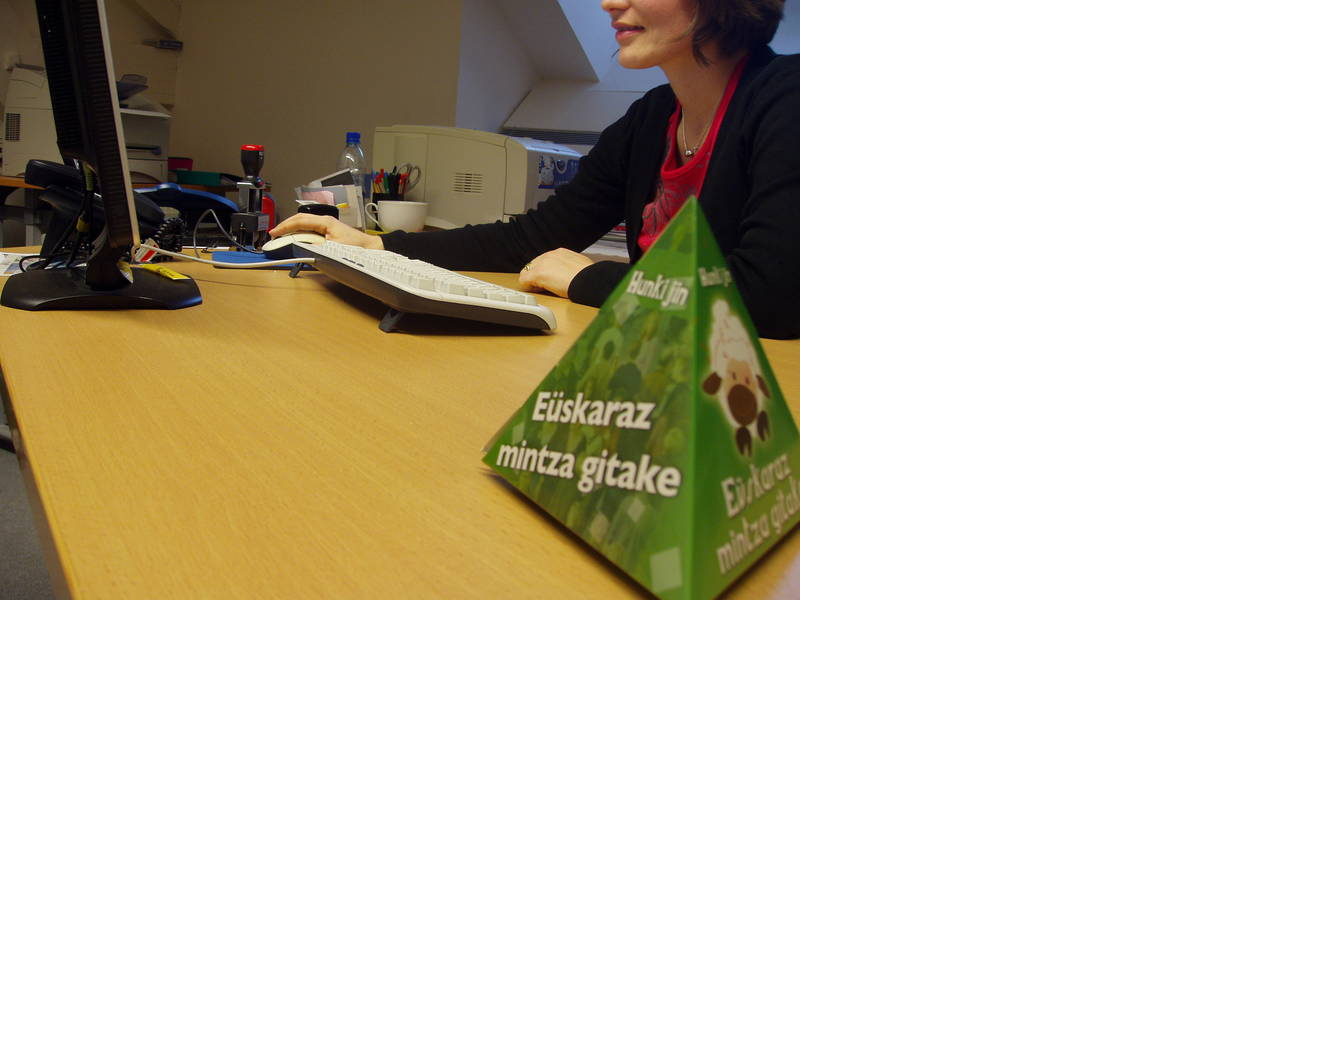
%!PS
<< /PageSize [1338 1048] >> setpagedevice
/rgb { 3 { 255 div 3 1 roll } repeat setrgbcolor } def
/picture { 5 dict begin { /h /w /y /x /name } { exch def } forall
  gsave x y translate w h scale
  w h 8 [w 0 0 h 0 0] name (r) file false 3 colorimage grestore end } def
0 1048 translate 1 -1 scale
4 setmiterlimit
255 255 255 rgb
0 0 1338 1048 rectfill
(img_01.rgb) 0 0 800 600 picture
showpage
